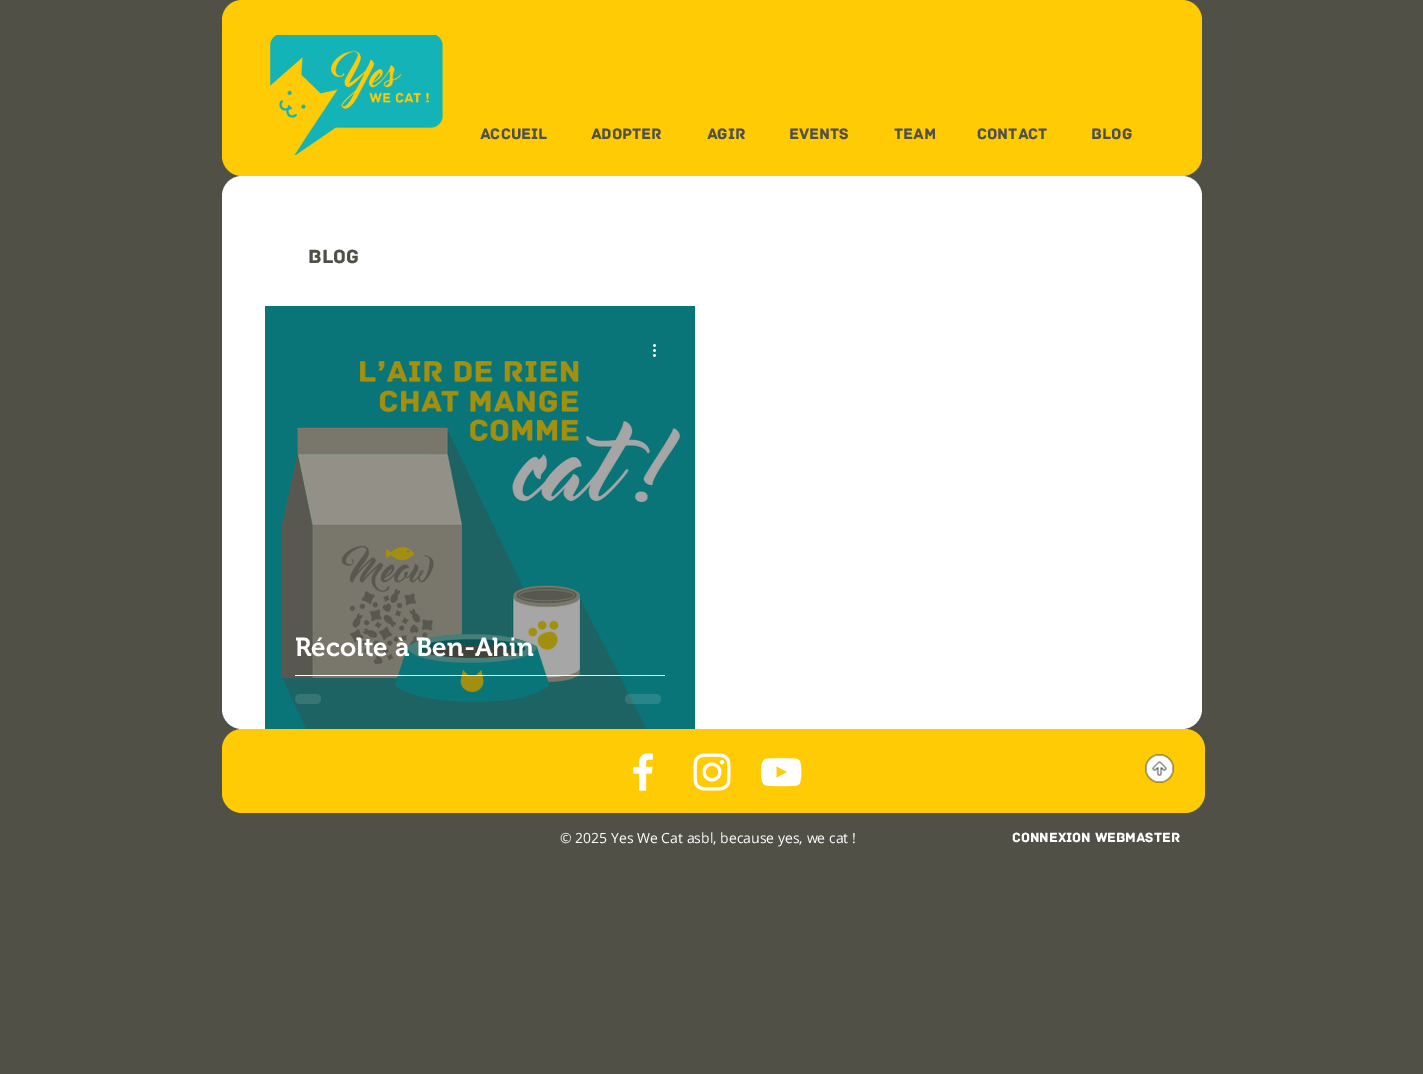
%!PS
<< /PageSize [1423 1074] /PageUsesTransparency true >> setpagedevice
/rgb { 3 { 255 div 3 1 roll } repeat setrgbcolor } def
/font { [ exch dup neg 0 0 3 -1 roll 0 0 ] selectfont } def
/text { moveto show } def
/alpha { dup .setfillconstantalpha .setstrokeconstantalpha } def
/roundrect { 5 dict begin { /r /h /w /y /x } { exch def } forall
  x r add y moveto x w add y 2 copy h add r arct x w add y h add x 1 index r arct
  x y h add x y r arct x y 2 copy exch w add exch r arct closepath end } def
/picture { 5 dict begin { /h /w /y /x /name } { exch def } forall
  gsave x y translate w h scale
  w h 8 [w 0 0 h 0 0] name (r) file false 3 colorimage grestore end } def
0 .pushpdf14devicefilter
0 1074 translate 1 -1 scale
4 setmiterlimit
81 80 71 rgb
0 0 1423 1074 rectfill
254 203 4 rgb
222 0 980 176 20 roundrect fill
(img_01.rgb) 270 35 173 120 picture
255 255 255 rgb
222 176 980 553 20 roundrect fill
(img_02.rgb) 265 306 430 423 picture
(img_03.rgb) 653 344 3 13 picture
295 675 370 1 rectfill
56 118 118 rgb
295 694 26 10 5 roundrect fill
0.12 alpha
255 255 255 rgb
625 694 36 10 5 roundrect fill
1 alpha
254 203 4 rgb
222 729 983 84 20 roundrect fill
(img_04.rgb) 633 753 20 38 picture
(img_05.rgb) 693 753 38 38 picture
(img_06.rgb) 760 758 42 29 picture
(img_07.rgb) 1145 754 29 29 picture
/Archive-Regular 16 font
81 80 71 rgb
(ACCUEIL) 480 139 text
(ADOPTER) 591 139 text
(AGIR) 707 139 text
(EVENTS) 789 139 text
(TEAM) 894 139 text
(CONTACT) 977 139 text
(BLOG) 1091 139 text
/Archive-Regular 20 font
(Blog) 308 263 text
/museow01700-SemiBold 26 font
255 255 255 rgb
(Récolte à Ben-Ahin) 295 656 text
/OpenSans-Regular 14 font
(© 2025 Yes We Cat asbl, because yes, we cat !) 560 843 text
/Archive-Regular 14 font
(Connexion Webmaster) 1012 842 text
.poppdf14devicefilter showpage
